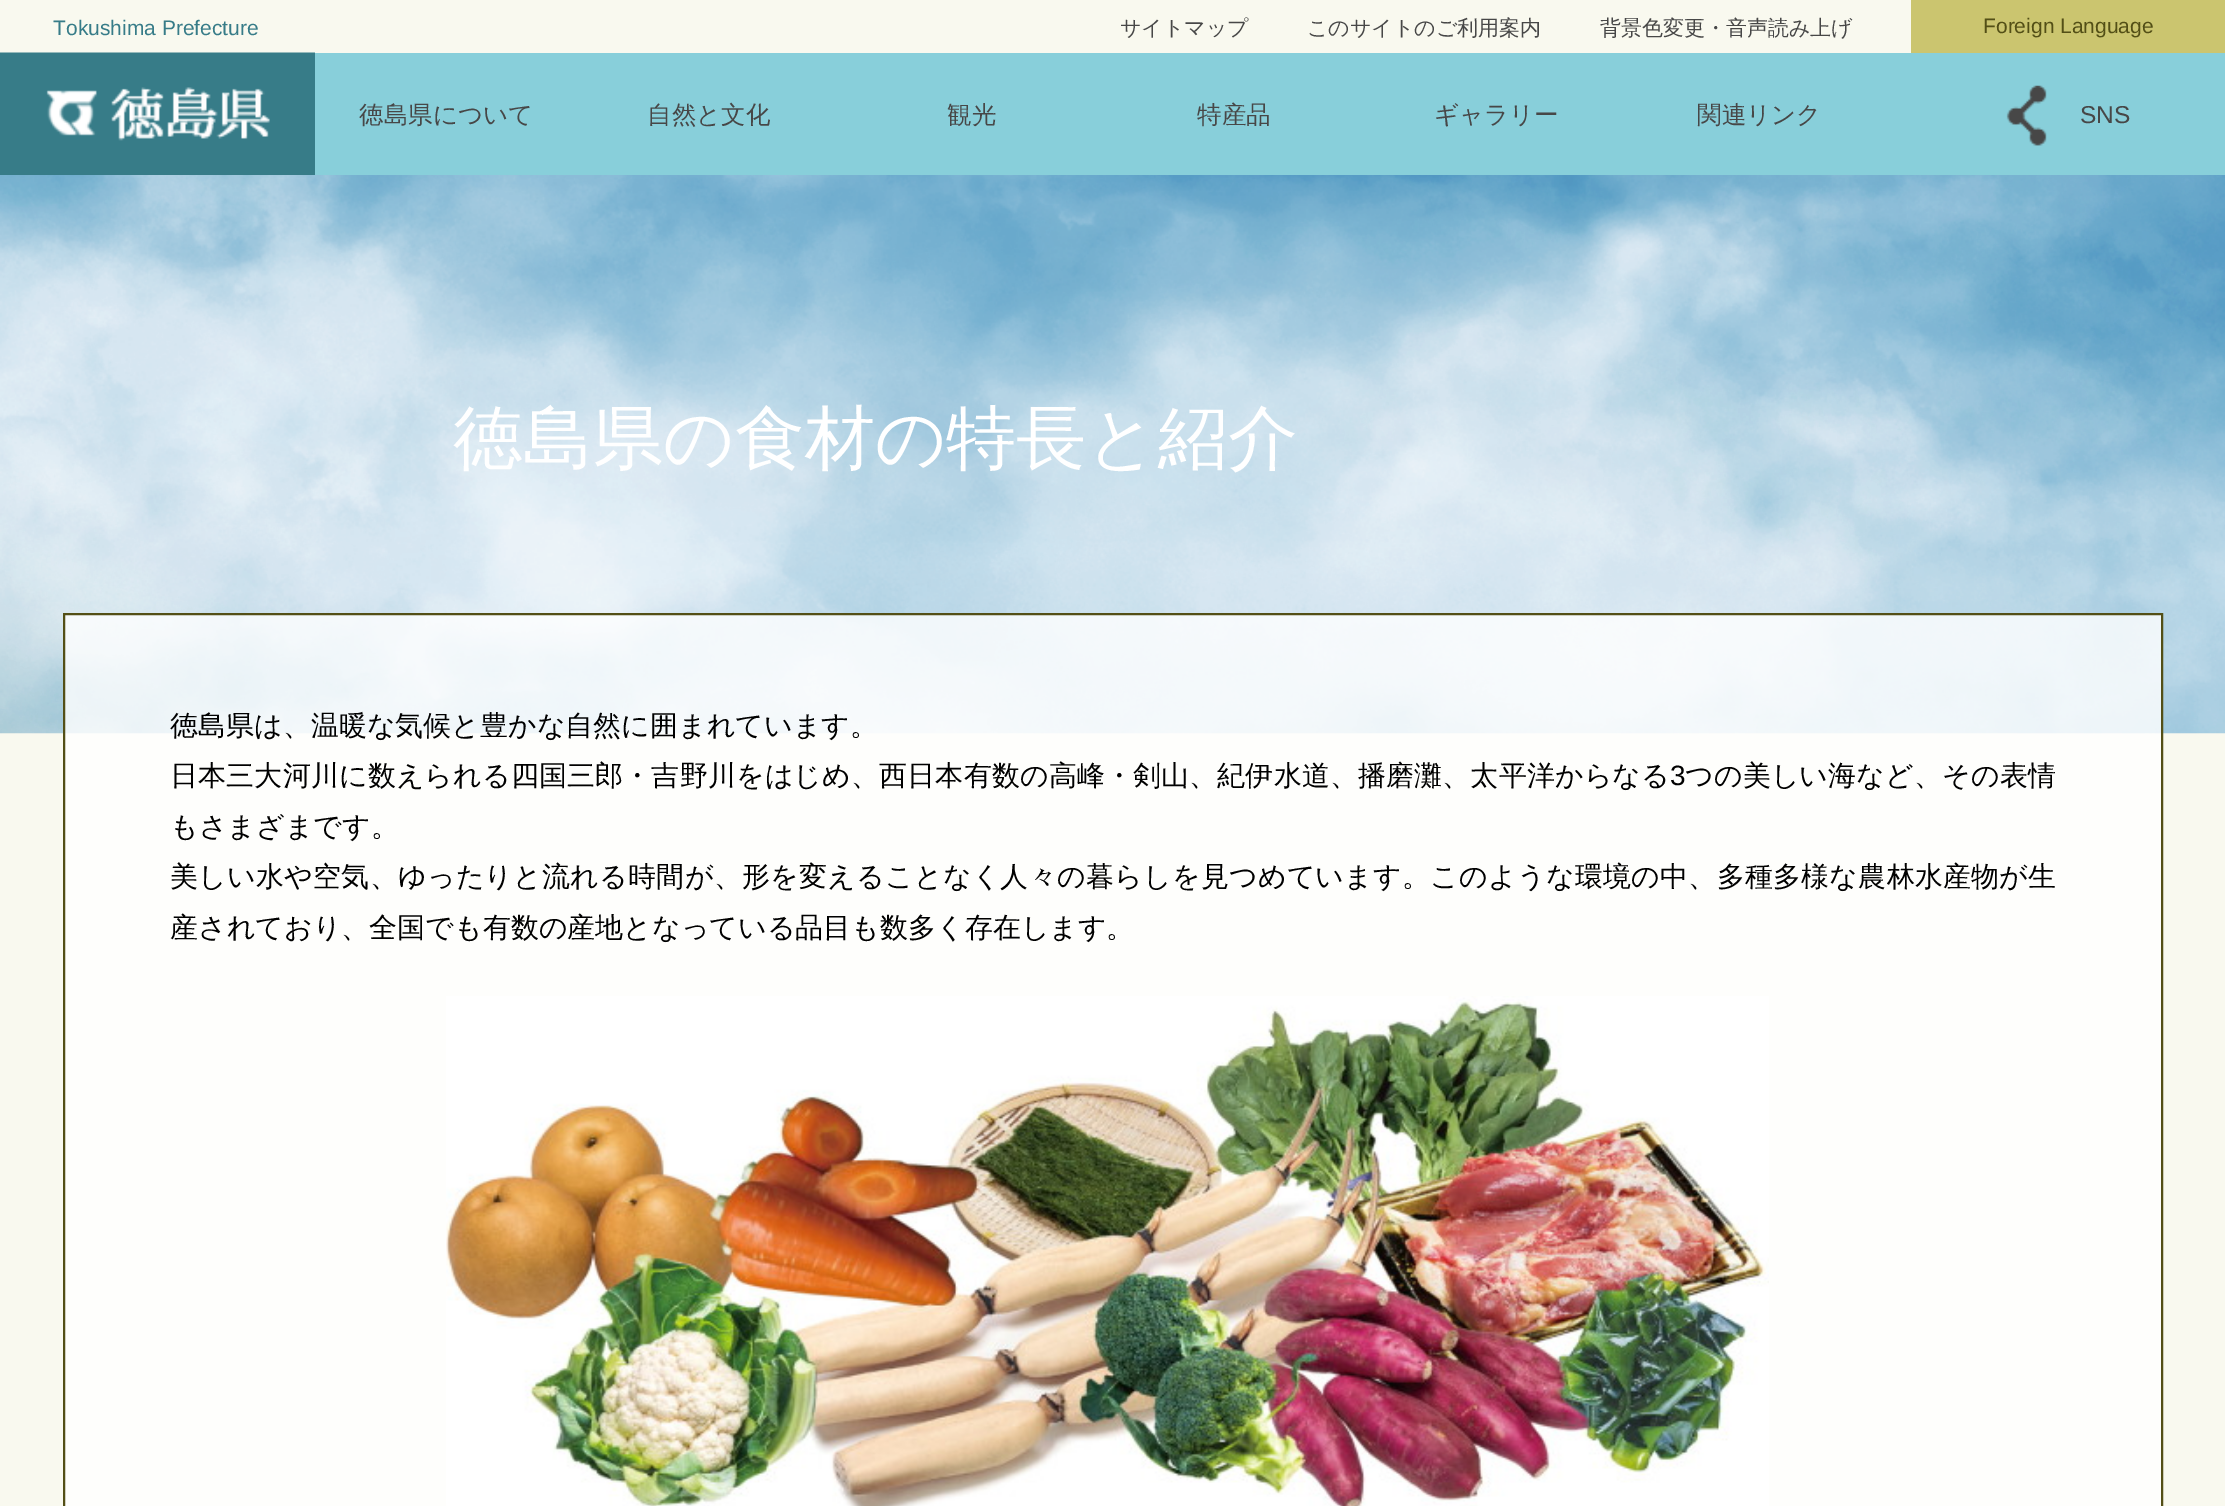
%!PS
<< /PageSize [2225 1506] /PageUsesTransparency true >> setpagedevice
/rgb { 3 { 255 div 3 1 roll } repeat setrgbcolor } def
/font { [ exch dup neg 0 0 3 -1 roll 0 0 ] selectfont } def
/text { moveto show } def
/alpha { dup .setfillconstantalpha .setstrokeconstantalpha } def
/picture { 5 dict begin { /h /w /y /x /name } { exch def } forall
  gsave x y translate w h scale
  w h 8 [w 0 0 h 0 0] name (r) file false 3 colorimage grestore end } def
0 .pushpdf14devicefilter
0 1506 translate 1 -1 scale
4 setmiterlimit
249 249 239 rgb
0 0 2225 1506 rectfill
(img_01.rgb) 0 175 2225 559 picture
203 197 111 rgb
1911 0 314 53 rectfill
136 207 218 rgb
315 53 1910 122 rectfill
(img_02.rgb) 0 52 315 123 picture
(img_03.rgb) 2006 85 41 61 picture
0.8 alpha
255 255 255 rgb
64 614 moveto 2098 0 rlineto 0 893 rlineto -2098 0 rlineto closepath fill
1 alpha
83 79 22 rgb
2 setlinewidth
64 614 moveto 2098 0 rlineto 0 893 rlineto -2098 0 rlineto closepath stroke
(img_04.rgb) 446 996 1323 510 picture
/LiberationSans-Regular 21 font
55 124 136 rgb
(Tokushima Prefecture) 53 35 text
/WenQuanYiZenHei-Medium 21 font
71 71 71 rgb
(サイトマップ) 1120 35 text
(このサイトのご利用案内) 1307 35 text
(背景色変更・音声読み上げ) 1600 35 text
/LiberationSans-Regular 21 font
83 79 22 rgb
(Foreign Language) 1983 33 text
/WenQuanYiZenHei-Medium 24.5 font
71 71 71 rgb
(徳島県について) 359 123 text
(自然と文化) 647 123 text
(観光) 947 123 text
(特産品) 1197 123 text
(ギャラリー) 1434 123 text
(関連リンク) 1697 123 text
/LiberationSans-Regular 24.5 font
(SNS) 2080 123 text
/WenQuanYiZenHei-Medium 70 font
255 255 255 rgb
(徳島県の食材の特長と紹介) 453 462 text
/WenQuanYiZenHei-Medium 28 font
0 0 0 rgb
(徳島県は、温暖な気候と豊かな自然に囲まれています。) 170 735 text
170 785 moveto 0.13 0 (日本三大河川に数えられる四国三郎・吉野川をはじめ、西日本有数の高峰・剣山、紀伊水道、播磨灘、太平洋からなる) ashow
/LiberationSans-Regular 28 font
1670 785 moveto 0.13 0 (3) ashow
/WenQuanYiZenHei-Medium 28 font
1685 785 moveto 0.13 0 (つの美しい海など、その表情) ashow
(もさまざまです。) 170 836 text
170 886 moveto 0.23 0 (美しい水や空気、ゆったりと流れる時間が、形を変えることなく人々の暮らしを見つめています。このような環境の中、多種多様な農林水産物が生) ashow
(産されており、全国でも有数の産地となっている品目も数多く存在します。) 170 937 text
.poppdf14devicefilter showpage
